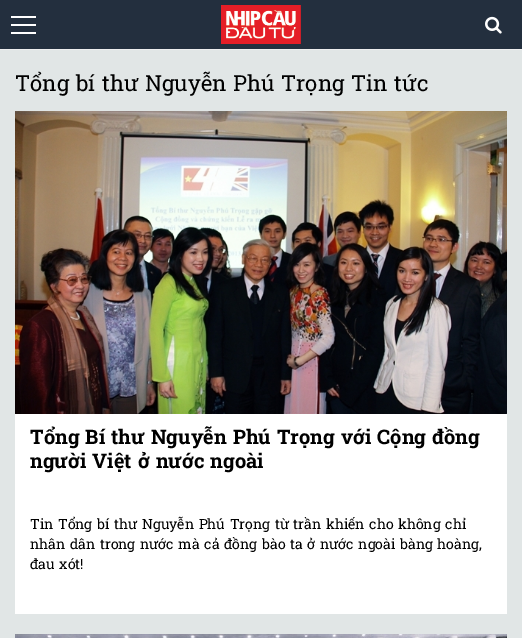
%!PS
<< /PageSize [522 638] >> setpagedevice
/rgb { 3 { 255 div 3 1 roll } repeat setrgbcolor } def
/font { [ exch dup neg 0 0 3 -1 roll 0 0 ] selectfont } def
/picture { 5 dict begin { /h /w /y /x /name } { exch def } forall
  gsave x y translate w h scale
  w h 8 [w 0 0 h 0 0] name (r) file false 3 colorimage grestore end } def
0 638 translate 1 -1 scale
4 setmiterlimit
225 230 230 rgb
0 0 522 638 rectfill
35 47 62 rgb
0 0 522 49 rectfill
238 238 238 rgb
0 49 522 1 rectfill
255 255 255 rgb
11 16 25 2 rectfill
11 24 25 2 rectfill
11 32 25 2 rectfill
(img_01.rgb) 221 5 80 39 picture
(img_02.rgb) 485 16 17 18 picture
(img_03.rgb) 15 111 492 303 picture
15 414 492 200 rectfill
(img_04.rgb) 15 634 492 4 picture
/RobotoSlab-Regular 22 font
0 0 0 rgb
15 91 moveto 1.25 0 32 (Tổng bí thư Nguyễn Phú Trọng Tin tức) widthshow
/RobotoSlab-Bold 20 font
30 444 moveto 1.25 0 32 (Tổng Bí thư Nguyễn Phú Trọng với Cộng đồng) widthshow
30 468 moveto 1.25 0 32 (người Việt ở nước ngoài) widthshow
/RobotoSlab-Regular 14 font
30 529 moveto 1.25 0 32 (Tin Tổng bí thư Nguyễn Phú Trọng từ trần khiến cho không chỉ) widthshow
30 549 moveto 1.25 0 32 (nhân dân trong nước mà cả đồng bào ta ở nước ngoài bàng hoàng,) widthshow
30 569 moveto 1.25 0 32 (đau xót!) widthshow
showpage
